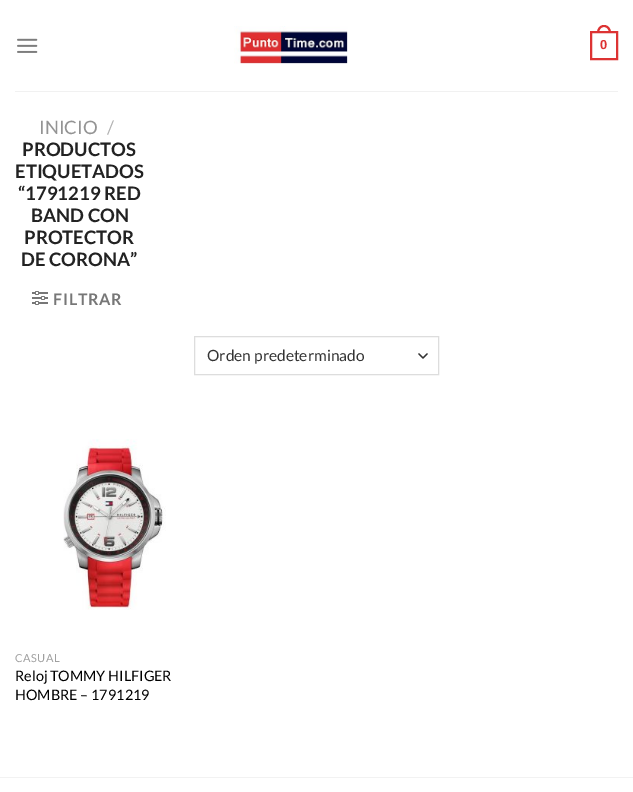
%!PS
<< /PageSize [633 792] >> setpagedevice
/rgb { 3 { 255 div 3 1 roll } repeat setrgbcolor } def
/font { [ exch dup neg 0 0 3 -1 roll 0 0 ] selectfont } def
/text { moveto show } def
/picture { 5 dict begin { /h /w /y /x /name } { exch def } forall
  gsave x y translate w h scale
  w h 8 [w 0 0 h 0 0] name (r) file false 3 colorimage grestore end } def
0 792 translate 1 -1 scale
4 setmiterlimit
255 255 255 rgb
0 0 633 792 rectfill
(img_01.rgb) 17 38 21 15 picture
(img_02.rgb) 234 26 114 38 picture
221 51 51 rgb
2 setlinewidth
591 32 26 27 rectstroke
604 25 moveto 4.5 0 7 4 7 8 rcurveto -14 0 rlineto 0 -4 2.5 -8 7 -8 rcurveto closepath 604 27 moveto 3.5 0 5 3 5 6 rcurveto -10 0 rlineto 0 -3 1.5 -6 5 -6 rcurveto closepath eofill
241 241 241 rgb
15 91 603 1 rectfill
(img_03.rgb) 32 291 16 14 picture
51 51 51 rgb
1.3 setlinewidth
1 setlinecap
1 setlinejoin
419 354 moveto 4 4 rlineto 4 -4 rlineto stroke
221 221 221 rgb
1 setlinewidth
0 setlinecap
0 setlinejoin
194.5 336.5 244 38 rectstroke
(img_04.rgb) 63 439 103 171 picture
242 242 242 rgb
0 777 633 1 rectfill
/LiberationSans-Bold 13 font
221 51 51 rgb
(0) 600 49 text
/Lato-Regular 18.5 font
148 148 148 rgb
(INICIO) 39 134 text
178 178 178 rgb
(/) 107 134 text
/Lato-Bold 18.5 font
34 34 34 rgb
(PRODUCTOS) 22 156 text
(ETIQUETADOS) 15 178 text
(“1791219 RED) 18 200 text
(BAND CON) 31 222 text
(PROTECTOR) 24 244 text
(DE CORONA”) 21 266 text
/Lato-Bold 16 font
119 119 119 rgb
53 305 moveto 0.75 0 (FILTRAR) ashow
/Lato-Regular 15.5 font
51 51 51 rgb
(Orden predeterminado) 207 361 text
/Lato-Regular 11 font
160 160 160 rgb
15 662 moveto 0.5 0 (CASUAL) ashow
/Lato-Regular 14.4 font
0 0 0 rgb
(Reloj TOMMY HILFIGER) 15 681 text
(HOMBRE – 1791219) 15 700 text
showpage
